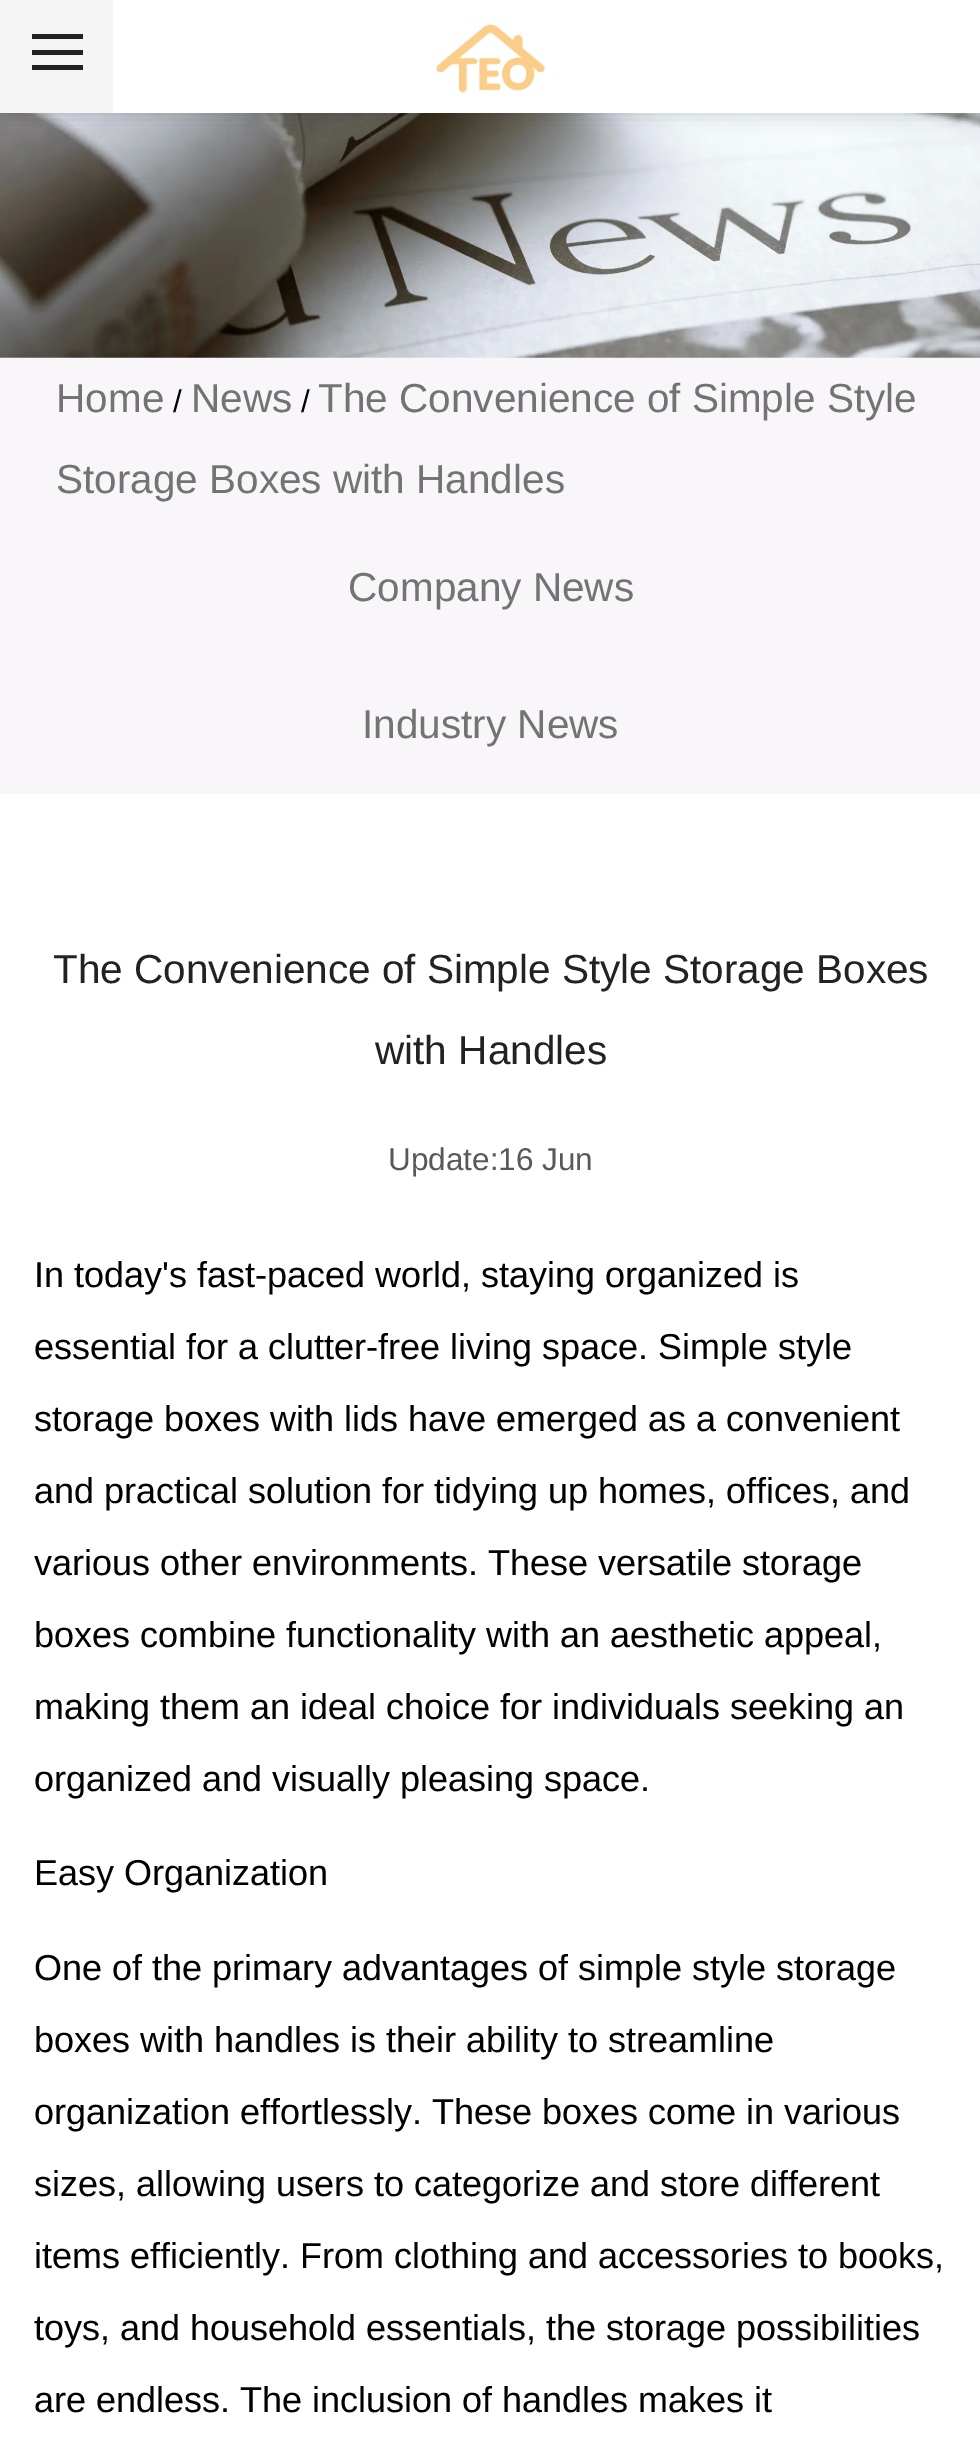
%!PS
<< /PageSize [980 2451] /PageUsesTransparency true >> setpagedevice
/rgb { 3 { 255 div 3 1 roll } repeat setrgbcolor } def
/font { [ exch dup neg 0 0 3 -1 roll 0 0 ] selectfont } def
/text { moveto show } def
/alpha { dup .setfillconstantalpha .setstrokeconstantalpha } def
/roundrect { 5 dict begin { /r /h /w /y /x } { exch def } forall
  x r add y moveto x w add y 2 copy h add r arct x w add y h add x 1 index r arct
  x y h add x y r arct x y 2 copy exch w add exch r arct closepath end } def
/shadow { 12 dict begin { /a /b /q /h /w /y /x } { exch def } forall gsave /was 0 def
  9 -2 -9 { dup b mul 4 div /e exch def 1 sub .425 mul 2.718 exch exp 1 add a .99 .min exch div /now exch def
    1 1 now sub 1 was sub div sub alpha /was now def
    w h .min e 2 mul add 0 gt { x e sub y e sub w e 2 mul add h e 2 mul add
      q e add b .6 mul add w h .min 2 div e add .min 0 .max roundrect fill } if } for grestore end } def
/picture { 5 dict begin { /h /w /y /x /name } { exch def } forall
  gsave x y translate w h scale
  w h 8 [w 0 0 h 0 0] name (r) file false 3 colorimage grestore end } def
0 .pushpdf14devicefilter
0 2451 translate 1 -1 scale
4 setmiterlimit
255 255 255 rgb
0 0 980 2451 rectfill
(img_02.rgb) 0 113 980 245 picture
0 0 0 rgb
0 0 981 113 0 11 0.2 shadow
255 255 255 rgb
113 0 867 113 rectfill
(img_01.rgb) 436 24 109 69 picture
245 245 245 rgb
0 0 113 113 rectfill
34 34 34 rgb
32 34 51 5 rectfill
32 50 51 5 rectfill
32 65 51 5 rectfill
248 246 249 rgb
0 358 980 436 rectfill
/LiberationSans-Regular 40.5 font
115 115 115 rgb
(Home) 56 412 text
/LiberationSans-Regular 31.5 font
0 0 0 rgb
(/) 173 412 text
/LiberationSans-Regular 40.5 font
115 115 115 rgb
(News) 191 412 text
/LiberationSans-Regular 31.5 font
0 0 0 rgb
(/) 301 412 text
/LiberationSans-Regular 40.5 font
115 115 115 rgb
(The Convenience of Simple Style) 318 412 text
(Storage Boxes with Handles) 56 493 text
(Company News) 348 601 text
(Industry News) 362 738 text
34 34 34 rgb
(The Convenience of Simple Style Storage Boxes) 53 983 text
(with Handles) 375 1064 text
/LiberationSans-Regular 31.5 font
88 88 88 rgb
(Update:16 Jun) 388 1170 text
/LiberationSans-Regular 36 font
0 0 0 rgb
(In today's fast-paced world, staying organized is) 34 1287 text
(essential for a clutter-free living space.) 34 1359 text
(Simple style) 658 1359 text
(storage boxes with lids) 34 1431 text
(have emerged as a convenient) 408 1431 text
(and practical solution for tidying up homes, offices, and) 34 1503 text
(various other environments. These versatile storage) 34 1575 text
(boxes combine functionality with an aesthetic appeal,) 34 1647 text
(making them an ideal choice for individuals seeking an) 34 1719 text
(organized and visually pleasing space.) 34 1791 text
(Easy Organization) 34 1885 text
(One of the primary advantages of simple style storage) 34 1980 text
(boxes with handles is their ability to streamline) 34 2052 text
(organization effortlessly. These boxes come in various) 34 2124 text
(sizes, allowing users to categorize and store different) 34 2196 text
(items efficiently. From clothing and accessories to books,) 34 2268 text
(toys, and household essentials, the storage possibilities) 34 2340 text
(are endless. The inclusion of handles makes it) 34 2412 text
.poppdf14devicefilter showpage
